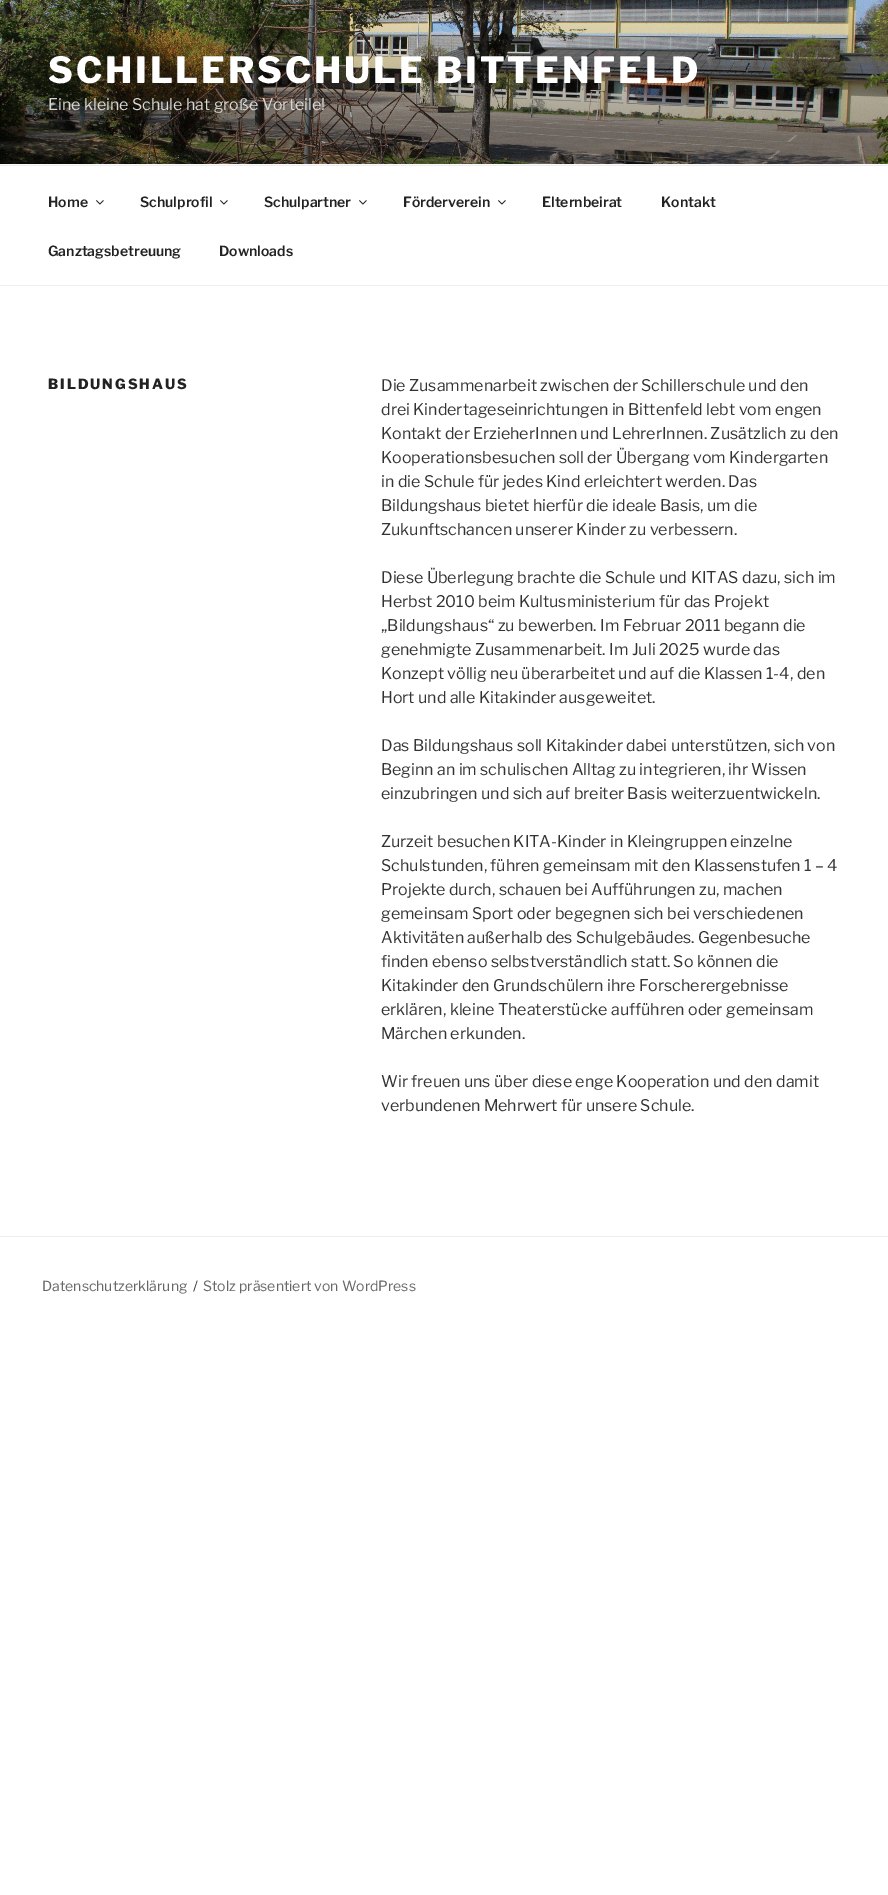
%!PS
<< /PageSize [888 1895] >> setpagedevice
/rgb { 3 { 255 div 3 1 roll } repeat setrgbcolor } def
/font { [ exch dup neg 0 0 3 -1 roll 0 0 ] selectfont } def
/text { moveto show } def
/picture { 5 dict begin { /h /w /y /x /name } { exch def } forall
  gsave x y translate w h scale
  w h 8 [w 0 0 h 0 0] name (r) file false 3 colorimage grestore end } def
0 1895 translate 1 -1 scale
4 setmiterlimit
255 255 255 rgb
0 0 888 1895 rectfill
250 250 250 rgb
0 164 888 1 rectfill
(img_01.rgb) 0 0 888 164 picture
238 238 238 rgb
0 165 888 1 rectfill
0 285 888 1 rectfill
(img_02.rgb) 96 200 8 5 picture
(img_02.rgb) 220 200 8 5 picture
(img_02.rgb) 359 200 8 5 picture
(img_02.rgb) 498 200 8 5 picture
0 1236 888 1 rectfill
/LibreFranklin-Thin 36 font
255 255 255 rgb
48 83 moveto 2.9 0 (SCHILLERSCHULE BITTENFELD) ashow
/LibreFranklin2-Thin 16 font
216 215 213 rgb
(Eine kleine Schule hat große Vorteile!) 48 110 text
/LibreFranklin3-Thin 14 font
34 34 34 rgb
(Home) 48 207 text
(Schulprofil) 140 207 text
(Schulpartner) 264 207 text
(Förderverein) 403 207 text
(Elternbeirat) 542 207 text
(Kontakt) 661 207 text
(Ganztagsbetreuung) 48 256 text
(Downloads) 219 256 text
/LibreFranklin-Thin 14 font
48 389 moveto 2 0 (BILDUNGSHAUS) ashow
/LibreFranklin2-Thin 16 font
51 51 51 rgb
(Die Zusammenarbeit zwischen der Schillerschule und den) 381 391 text
(drei Kindertageseinrichtungen in Bittenfeld lebt vom engen) 381 415 text
(Kontakt der ErzieherInnen und LehrerInnen. Zusätzlich zu den) 381 439 text
(Kooperationsbesuchen soll der Übergang vom Kindergarten) 381 463 text
(in die Schule für jedes Kind erleichtert werden. Das) 381 487 text
(Bildungshaus bietet hierfür die ideale Basis, um die) 381 511 text
(Zukunftschancen unserer Kinder zu verbessern.) 381 535 text
(Diese Überlegung brachte die Schule und KITAS dazu, sich im) 381 583 text
(Herbst 2010 beim Kultusministerium für das Projekt) 381 607 text
(„Bildungshaus“ zu bewerben. Im Februar 2011 begann die) 381 631 text
(genehmigte Zusammenarbeit. Im Juli 2025 wurde das) 381 655 text
(Konzept völlig neu überarbeitet und auf die Klassen 1-4, den) 381 679 text
(Hort und alle Kitakinder ausgeweitet.) 381 703 text
(Das Bildungshaus soll Kitakinder dabei unterstützen, sich von) 381 751 text
(Beginn an im schulischen Alltag zu integrieren, ihr Wissen) 381 775 text
(einzubringen und sich auf breiter Basis weiterzuentwickeln.) 381 799 text
(Zurzeit besuchen KITA-Kinder in Kleingruppen einzelne) 381 847 text
(Schulstunden, führen gemeinsam mit den Klassenstufen 1 – 4) 381 871 text
(Projekte durch, schauen bei Aufführungen zu, machen) 381 895 text
(gemeinsam Sport oder begegnen sich bei verschiedenen) 381 919 text
(Aktivitäten außerhalb des Schulgebäudes. Gegenbesuche) 381 943 text
(finden ebenso selbstverständlich statt. So können die) 381 967 text
(Kitakinder den Grundschülern ihre Forscherergebnisse) 381 991 text
(erklären, kleine Theaterstücke aufführen oder gemeinsam) 381 1015 text
(Märchen erkunden.) 381 1039 text
(Wir freuen uns über diese enge Kooperation und den damit) 381 1087 text
(verbundenen Mehrwert für unsere Schule.) 381 1111 text
/LibreFranklin2-Thin 14 font
102 102 102 rgb
(Datenschutzerklärung) 42 1291 text
51 51 51 rgb
(/) 193 1291 text
102 102 102 rgb
(Stolz präsentiert von WordPress) 203 1291 text
showpage
